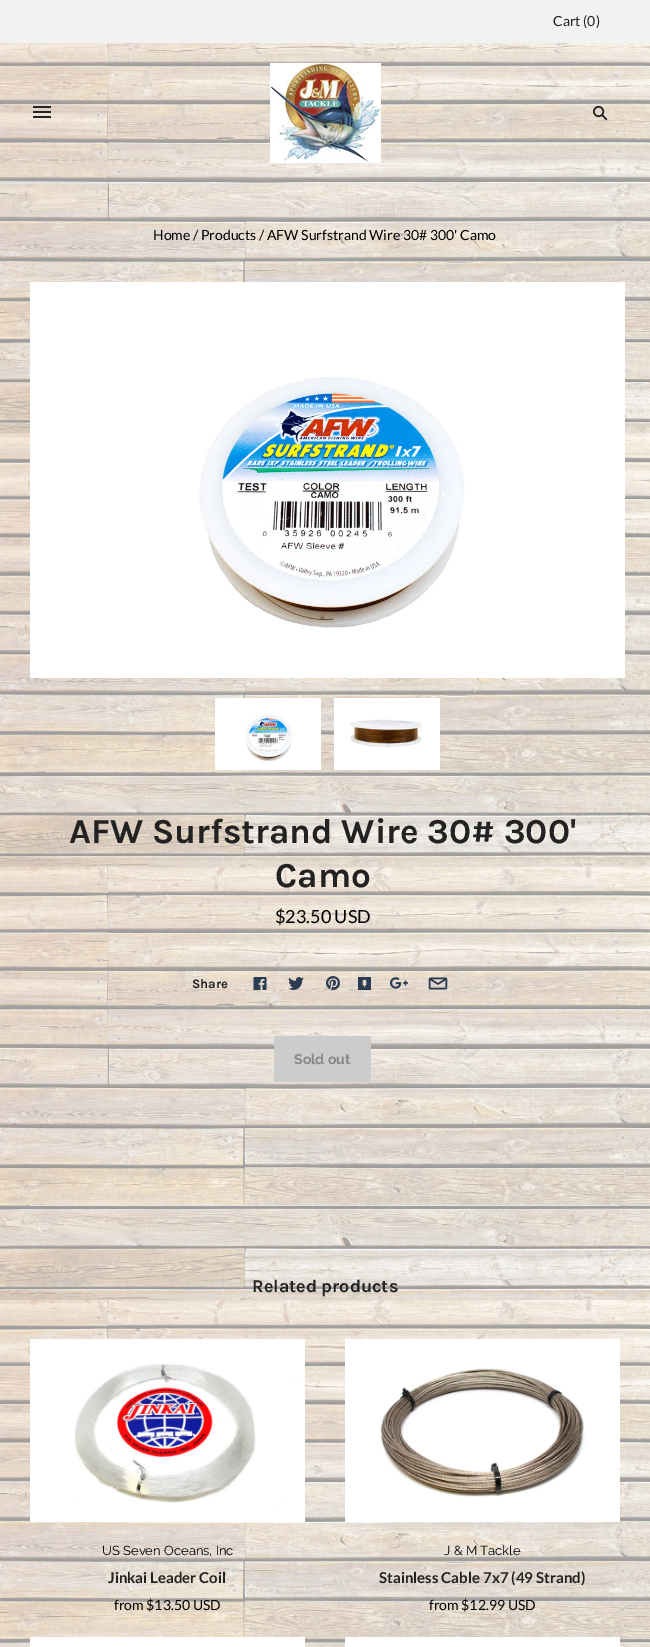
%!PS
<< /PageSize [650 1647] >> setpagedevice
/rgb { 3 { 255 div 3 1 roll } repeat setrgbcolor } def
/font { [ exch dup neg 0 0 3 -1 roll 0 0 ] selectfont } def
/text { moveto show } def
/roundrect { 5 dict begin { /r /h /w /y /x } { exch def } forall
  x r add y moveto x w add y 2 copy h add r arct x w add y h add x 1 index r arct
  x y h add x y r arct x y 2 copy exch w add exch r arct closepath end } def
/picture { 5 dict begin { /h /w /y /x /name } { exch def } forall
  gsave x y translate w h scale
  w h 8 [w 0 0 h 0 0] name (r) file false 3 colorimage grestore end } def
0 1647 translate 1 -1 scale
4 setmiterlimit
255 255 255 rgb
0 0 650 1647 rectfill
(img_01.rgb) 0 43 650 1604 picture
228 228 228 rgb
0 183 650 1 rectfill
242 242 242 rgb
0 0 650 43 rectfill
(img_02.rgb) 33 106 18 12 picture
(img_03.rgb) 270 63 111 100 picture
(img_04.rgb) 592 105 16 16 picture
(img_05.rgb) 30 282 595 396 picture
(img_06.rgb) 215 698 106 72 picture
(img_07.rgb) 334 698 106 72 picture
(img_08.rgb) 253 977 14 13 picture
(img_09.rgb) 288 977 16 13 picture
(img_10.rgb) 326 976 14 14 picture
(img_11.rgb) 358 977 13 13 picture
(img_12.rgb) 390 977 18 12 picture
(img_13.rgb) 428 977 20 13 picture
204 204 204 rgb
274 1036 97 46 2 roundrect fill
228 228 228 rgb
30 1205 590 1 rectfill
(img_14.rgb) 30 1339 275 183 picture
(img_15.rgb) 345 1339 275 183 picture
255 255 255 rgb
30 1637 275 10 rectfill
345 1637 275 10 rectfill
/Lato-Regular 14 font
34 34 34 rgb
(Cart \(0\)) 553 26 text
0 0 0 rgb
(Home / Products / AFW Surfstrand Wire 30# 300' Camo) 153 240 text
/Karla-Bold 35 font
34 34 34 rgb
(AFW Surfstrand Wire 30# 300') 69 843 text
(Camo) 275 887 text
/Lato-Regular 18 font
0 0 0 rgb
($23.50 USD) 275 923 text
/Karla-Bold 13 font
34 34 34 rgb
(Share) 192 988 text
/Raleway-Bold 14 font
136 136 136 rgb
(Sold out) 294 1064 text
/Karla-Bold 18 font
34 34 34 rgb
(Related products) 252 1292 text
/Raleway-Regular 13 font
0 0 0 rgb
(US Seven Oceans, Inc) 102 1555 text
/Lato-Bold 15 font
34 34 34 rgb
(Jinkai Leader Coil) 108 1583 text
/Lato-Regular 14 font
0 0 0 rgb
(from $13.50 USD) 114 1610 text
/Raleway-Regular 13 font
(J & M Tackle) 444 1555 text
/Lato-Bold 15 font
34 34 34 rgb
(Stainless Cable 7x7 \(49 Strand\)) 379 1583 text
/Lato-Regular 14 font
0 0 0 rgb
(from $12.99 USD) 429 1610 text
showpage
